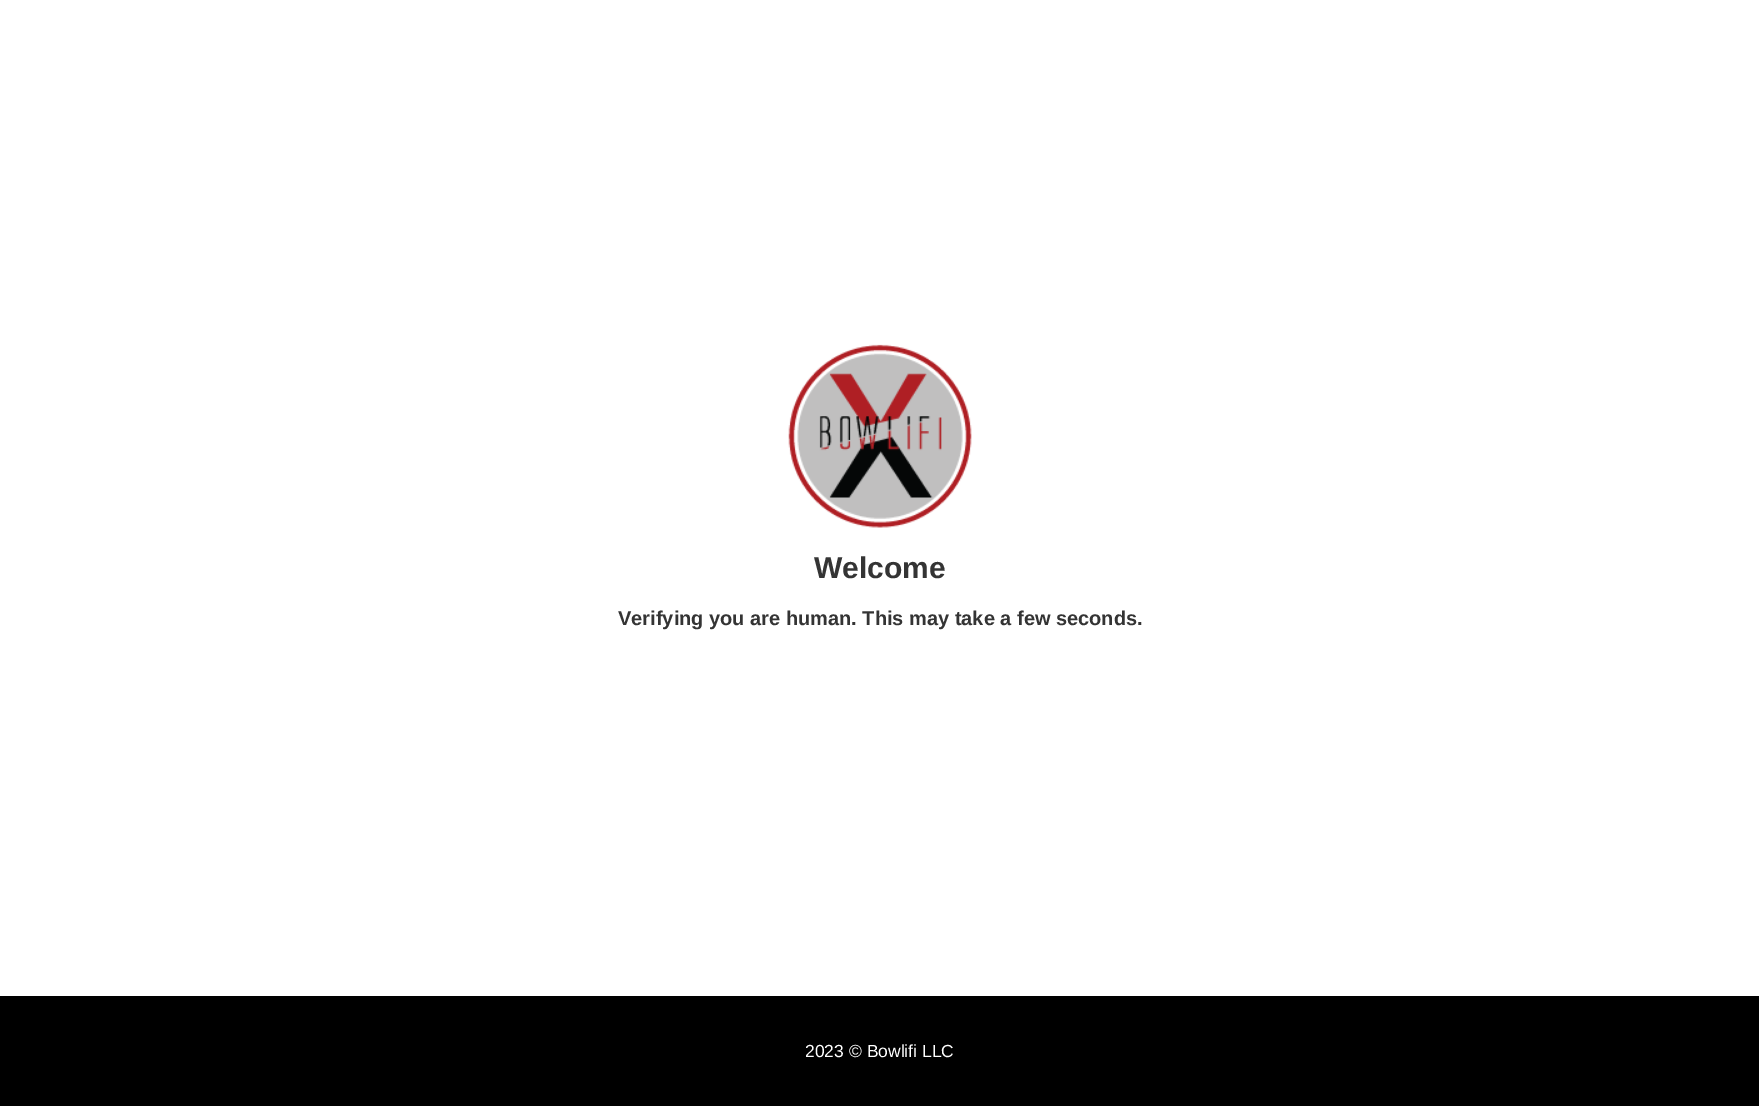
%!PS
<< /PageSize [1759 1106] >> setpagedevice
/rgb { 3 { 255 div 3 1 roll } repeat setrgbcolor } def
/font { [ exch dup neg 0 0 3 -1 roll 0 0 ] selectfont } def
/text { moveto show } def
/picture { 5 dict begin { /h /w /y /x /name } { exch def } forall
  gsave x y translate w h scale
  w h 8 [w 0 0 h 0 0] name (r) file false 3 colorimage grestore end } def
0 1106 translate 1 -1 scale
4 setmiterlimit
255 255 255 rgb
0 0 1759 1106 rectfill
(img_01.rgb) 788 344 184 184 picture
0 0 0 rgb
0 996 1759 110 rectfill
/LiberationSans-Bold 30 font
52 52 52 rgb
(Welcome) 814 578 text
/LiberationSans-Bold 20 font
(Verifying you are human. This may take a few seconds.) 618 625 text
/LiberationSans-Regular 17.5 font
255 255 255 rgb
(2023 © Bowlifi LLC) 805 1057 text
showpage
